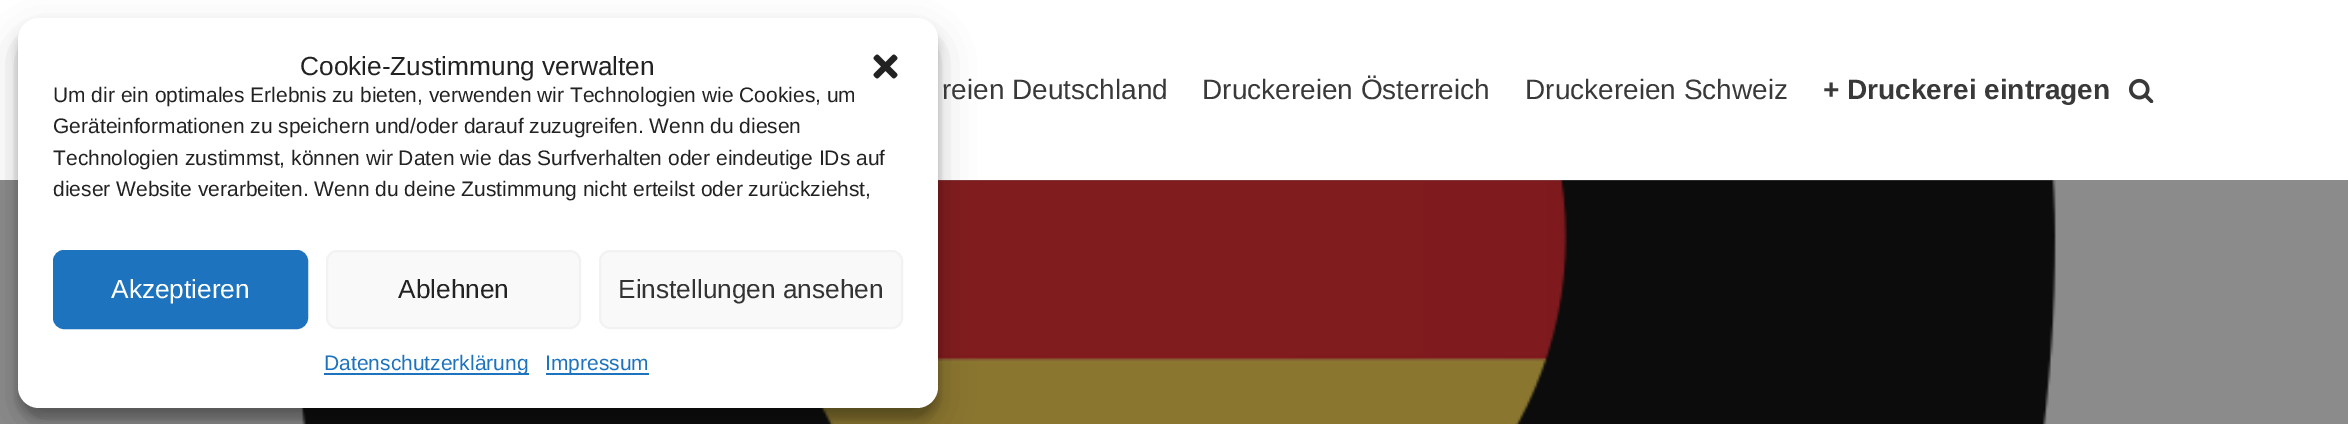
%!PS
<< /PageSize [2348 424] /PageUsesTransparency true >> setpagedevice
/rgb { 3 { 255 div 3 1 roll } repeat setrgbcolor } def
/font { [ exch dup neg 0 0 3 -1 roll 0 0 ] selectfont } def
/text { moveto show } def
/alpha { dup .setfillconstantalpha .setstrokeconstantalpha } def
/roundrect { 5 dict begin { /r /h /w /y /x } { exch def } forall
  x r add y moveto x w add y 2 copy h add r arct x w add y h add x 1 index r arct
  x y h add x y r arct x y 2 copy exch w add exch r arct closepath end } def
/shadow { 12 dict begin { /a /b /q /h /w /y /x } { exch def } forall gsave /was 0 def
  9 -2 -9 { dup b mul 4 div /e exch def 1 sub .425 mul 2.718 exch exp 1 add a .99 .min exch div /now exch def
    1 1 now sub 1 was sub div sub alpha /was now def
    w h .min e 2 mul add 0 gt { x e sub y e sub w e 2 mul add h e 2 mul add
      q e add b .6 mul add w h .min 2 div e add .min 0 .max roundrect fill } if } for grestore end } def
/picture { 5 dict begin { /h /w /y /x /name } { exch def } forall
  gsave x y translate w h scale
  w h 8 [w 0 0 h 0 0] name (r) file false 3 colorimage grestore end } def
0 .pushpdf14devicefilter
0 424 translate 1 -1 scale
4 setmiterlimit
255 255 255 rgb
0 0 2348 424 rectfill
139 139 139 rgb
0 180 2348 244 rectfill
(img_03.rgb) 300 180 1756 244 picture
0 0 0 rgb
18 28 920 390 21 5 0.23 shadow
18 35 920 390 21 17.5 0.19 shadow
255 255 255 rgb
18 18 920 390 21 roundrect fill
(img_01.rgb) 873 54 25 25 picture
30 115 190 rgb
54 251 253 77 10 roundrect gsave fill grestore
2 setlinewidth
stroke
249 249 249 rgb
327 251 253 77 10 roundrect gsave fill grestore
242 242 242 rgb
stroke
249 249 249 rgb
600 251 302 77 10 roundrect gsave fill grestore
242 242 242 rgb
stroke
30 115 190 rgb
324 373 205 2 rectfill
546 373 103 2 rectfill
(img_02.rgb) 2128 78 26 25 picture
/LiberationSans-Regular 26.25 font
34 34 34 rgb
(Cookie-Zustimmung verwalten) 300 75 text
/LiberationSans-Regular 21 font
(Um dir ein optimales Erlebnis zu bieten, verwenden wir Technologien wie Cookies, um) 53 102 text
(Geräteinformationen zu speichern und/oder darauf zuzugreifen. Wenn du diesen) 53 133 text
(Technologien zustimmst, können wir Daten wie das Surfverhalten oder eindeutige IDs auf) 53 165 text
(dieser Website verarbeiten. Wenn du deine Zustimmung nicht erteilst oder zurückziehst,) 53 196 text
/LiberationSans-Regular 26.25 font
255 255 255 rgb
(Akzeptieren) 111 298 text
34 34 34 rgb
(Ablehnen) 398 298 text
51 51 51 rgb
(Einstellungen ansehen) 618 298 text
/LiberationSans-Regular 21 font
30 115 190 rgb
(Datenschutzerklärung) 324 370 text
(Impressum) 545 370 text
/LiberationSans-Regular 28 font
57 57 57 rgb
(reien Deutschland) 942 99 text
(Druckereien Österreich) 1202 99 text
(Druckereien Schweiz) 1525 99 text
/LiberationSans-Bold 28 font
(+ Druckerei eintragen) 1823 99 text
.poppdf14devicefilter showpage
